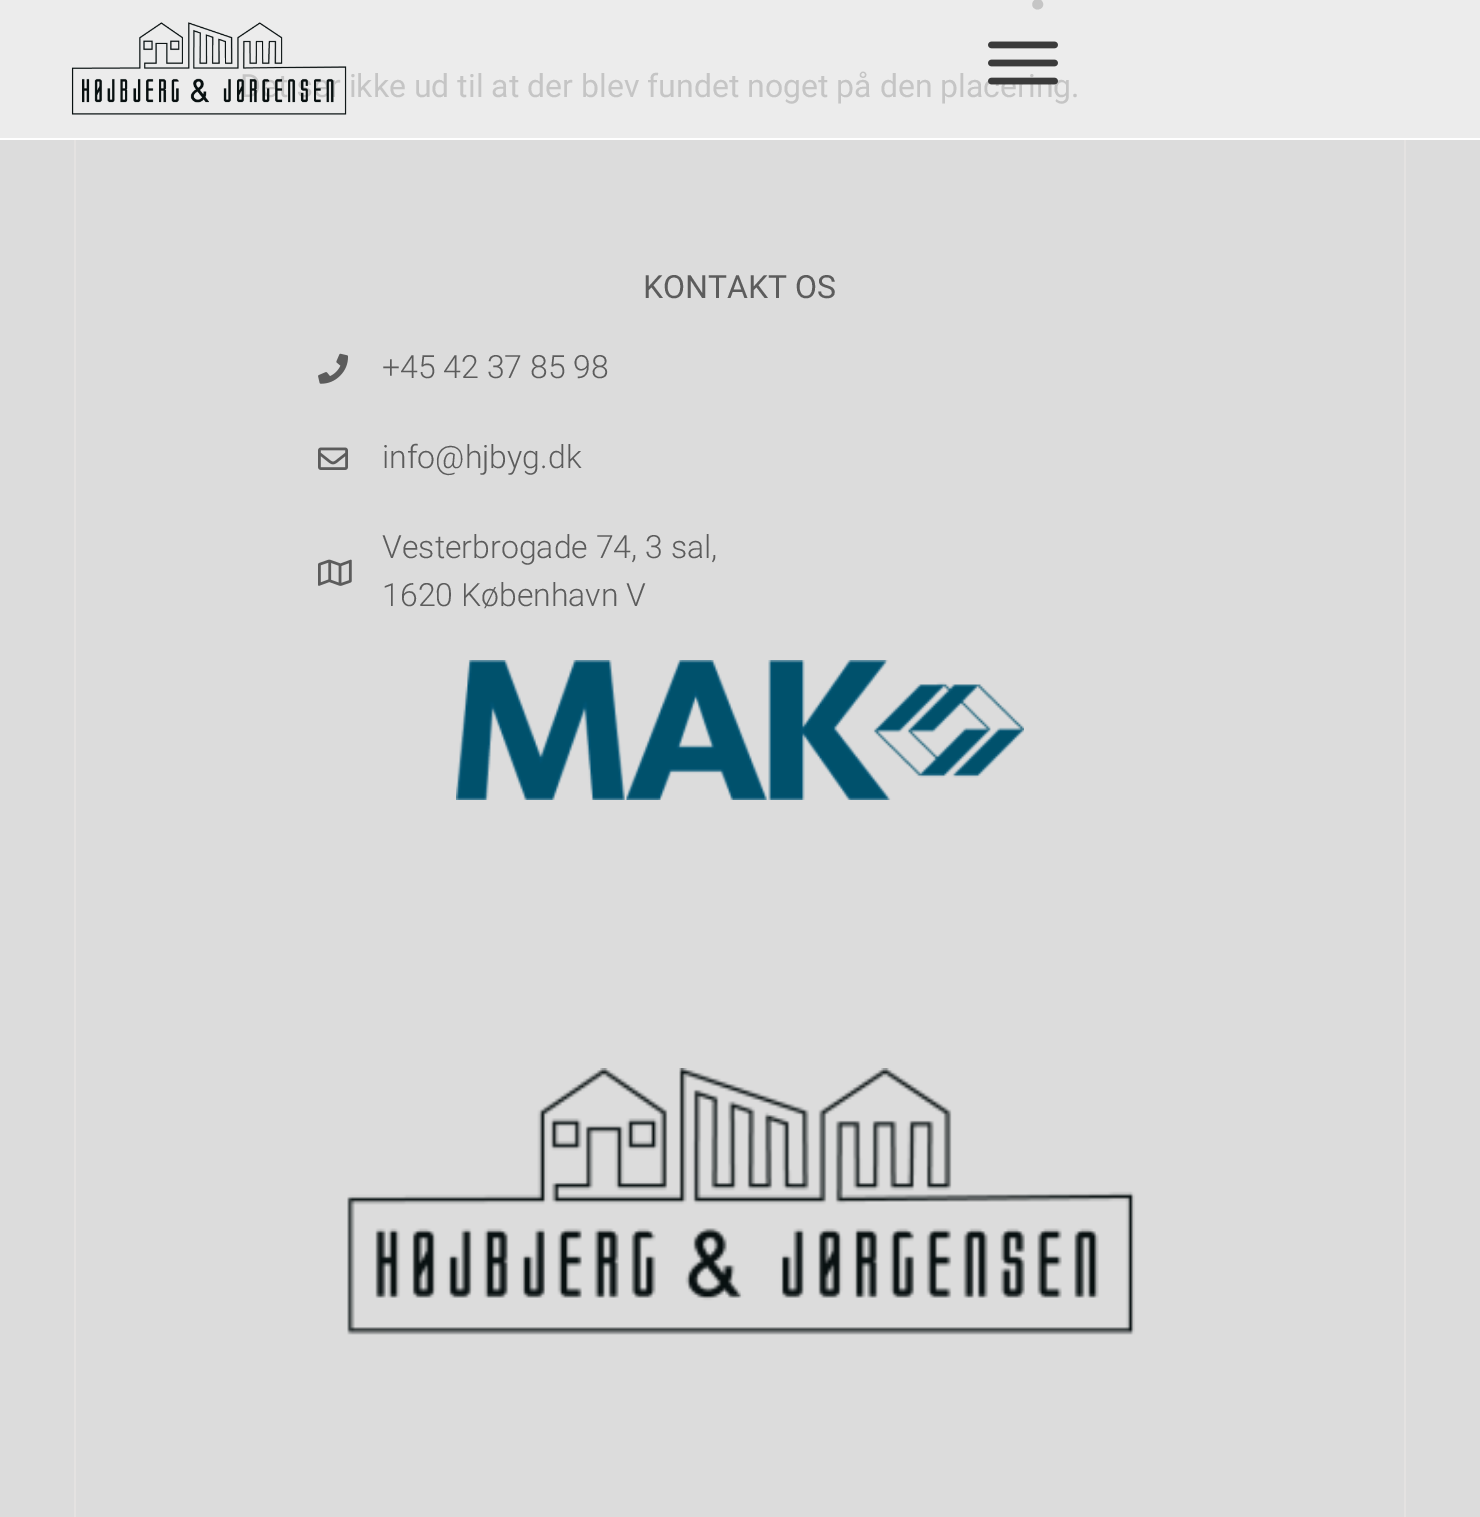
%!PS
<< /PageSize [1480 1517] >> setpagedevice
/rgb { 3 { 255 div 3 1 roll } repeat setrgbcolor } def
/font { [ exch dup neg 0 0 3 -1 roll 0 0 ] selectfont } def
/text { moveto show } def
/picture { 5 dict begin { /h /w /y /x /name } { exch def } forall
  gsave x y translate w h scale
  w h 8 [w 0 0 h 0 0] name (r) file false 3 colorimage grestore end } def
0 1517 translate 1 -1 scale
4 setmiterlimit
255 255 255 rgb
0 0 1480 1517 rectfill
236 236 236 rgb
0 0 1480 138 rectfill
220 220 220 rgb
0 140 1480 1377 rectfill
228 226 225 rgb
1404 140 2 1377 rectfill
74 140 2 1377 rectfill
(img_03.rgb) 318 353 30 31 picture
(img_04.rgb) 318 447 30 23 picture
(img_05.rgb) 318 559 34 27 picture
(img_06.rgb) 456 660 568 140 picture
(img_07.rgb) 347 1068 788 267 picture
/Roboto-Medium 80 font
197 197 197 rgb
(.) 1027 9 text
/Roboto-Regular 32 font
(Det ser ikke ud til at der blev fundet noget på den placering.) 240 97 text
(img_01.rgb) 71 22 276 93 picture
(img_02.rgb) 988 41 70 44 picture
92 92 92 rgb
(KONTAKT OS) 643 298 text
/Roboto-Light 32 font
(+45 42 37 85 98) 382 378 text
(info@hjbyg.dk) 382 468 text
(Vesterbrogade 74, 3 sal,) 382 558 text
(1620 København V) 382 606 text
showpage
